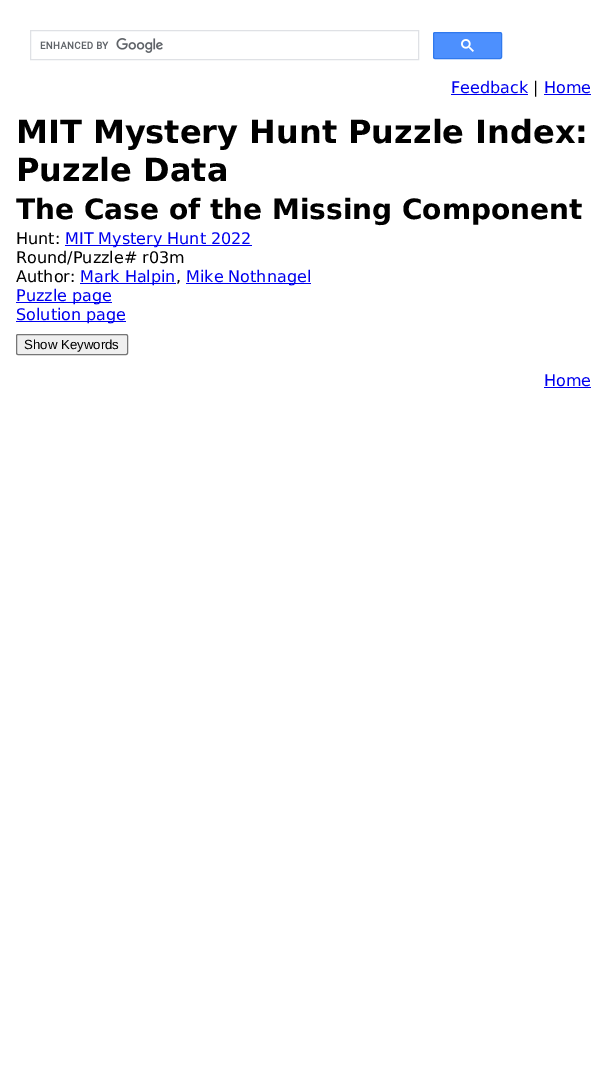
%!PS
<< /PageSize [607 1078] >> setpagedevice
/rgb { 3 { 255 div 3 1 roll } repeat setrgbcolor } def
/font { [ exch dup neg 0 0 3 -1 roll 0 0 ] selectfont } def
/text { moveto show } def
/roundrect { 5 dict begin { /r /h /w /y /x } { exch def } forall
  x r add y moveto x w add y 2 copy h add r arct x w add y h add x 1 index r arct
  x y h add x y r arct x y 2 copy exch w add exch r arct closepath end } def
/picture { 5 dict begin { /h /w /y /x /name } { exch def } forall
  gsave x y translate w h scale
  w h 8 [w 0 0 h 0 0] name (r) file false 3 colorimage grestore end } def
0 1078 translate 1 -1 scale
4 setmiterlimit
255 255 255 rgb
0 0 607 1078 rectfill
223 225 229 rgb
30.5 30.5 388 29 rectstroke
(img_01.rgb) 40 38 123 15 picture
77 144 254 rgb
433.5 32.5 68 26 1.5 roundrect gsave fill grestore
48 121 237 rgb
stroke
(img_02.rgb) 461 39 13 13 picture
0 0 238 rgb
451 94 77 1 rectfill
544 94 47 1 rectfill
65 245 187 1 rectfill
80 283 96 1 rectfill
186 283 125 1 rectfill
16 302 96 1 rectfill
16 321 110 1 rectfill
239 239 239 rgb
16.5 334.5 111 20 1.5 roundrect gsave fill grestore
118 118 118 rgb
stroke
0 0 238 rgb
544 387 47 1 rectfill
/DejaVuSans-Regular 16 font
(Feedback) 451 93 text
0 0 0 rgb
(|) 533 93 text
0 0 238 rgb
(Home) 544 93 text
/DejaVuSans-Bold 32 font
0 0 0 rgb
(MIT Mystery Hunt Puzzle Index:) 16 143 text
(Puzzle Data) 16 181 text
/DejaVuSans-Bold 28 font
(The Case of the Missing Component) 16 219 text
/DejaVuSans-Regular 16 font
(Hunt:) 16 244 text
0 0 238 rgb
(MIT Mystery Hunt 2022) 65 244 text
0 0 0 rgb
(Round/Puzzle# r03m) 16 263 text
(Author:) 16 282 text
0 0 238 rgb
(Mark Halpin) 80 282 text
0 0 0 rgb
(,) 176 282 text
0 0 238 rgb
(Mike Nothnagel) 186 282 text
(Puzzle page) 16 301 text
(Solution page) 16 320 text
/LiberationSans-Regular 13.25 font
0 0 0 rgb
(Show Keywords) 24 349 text
/DejaVuSans-Regular 16 font
0 0 238 rgb
(Home) 544 386 text
showpage
